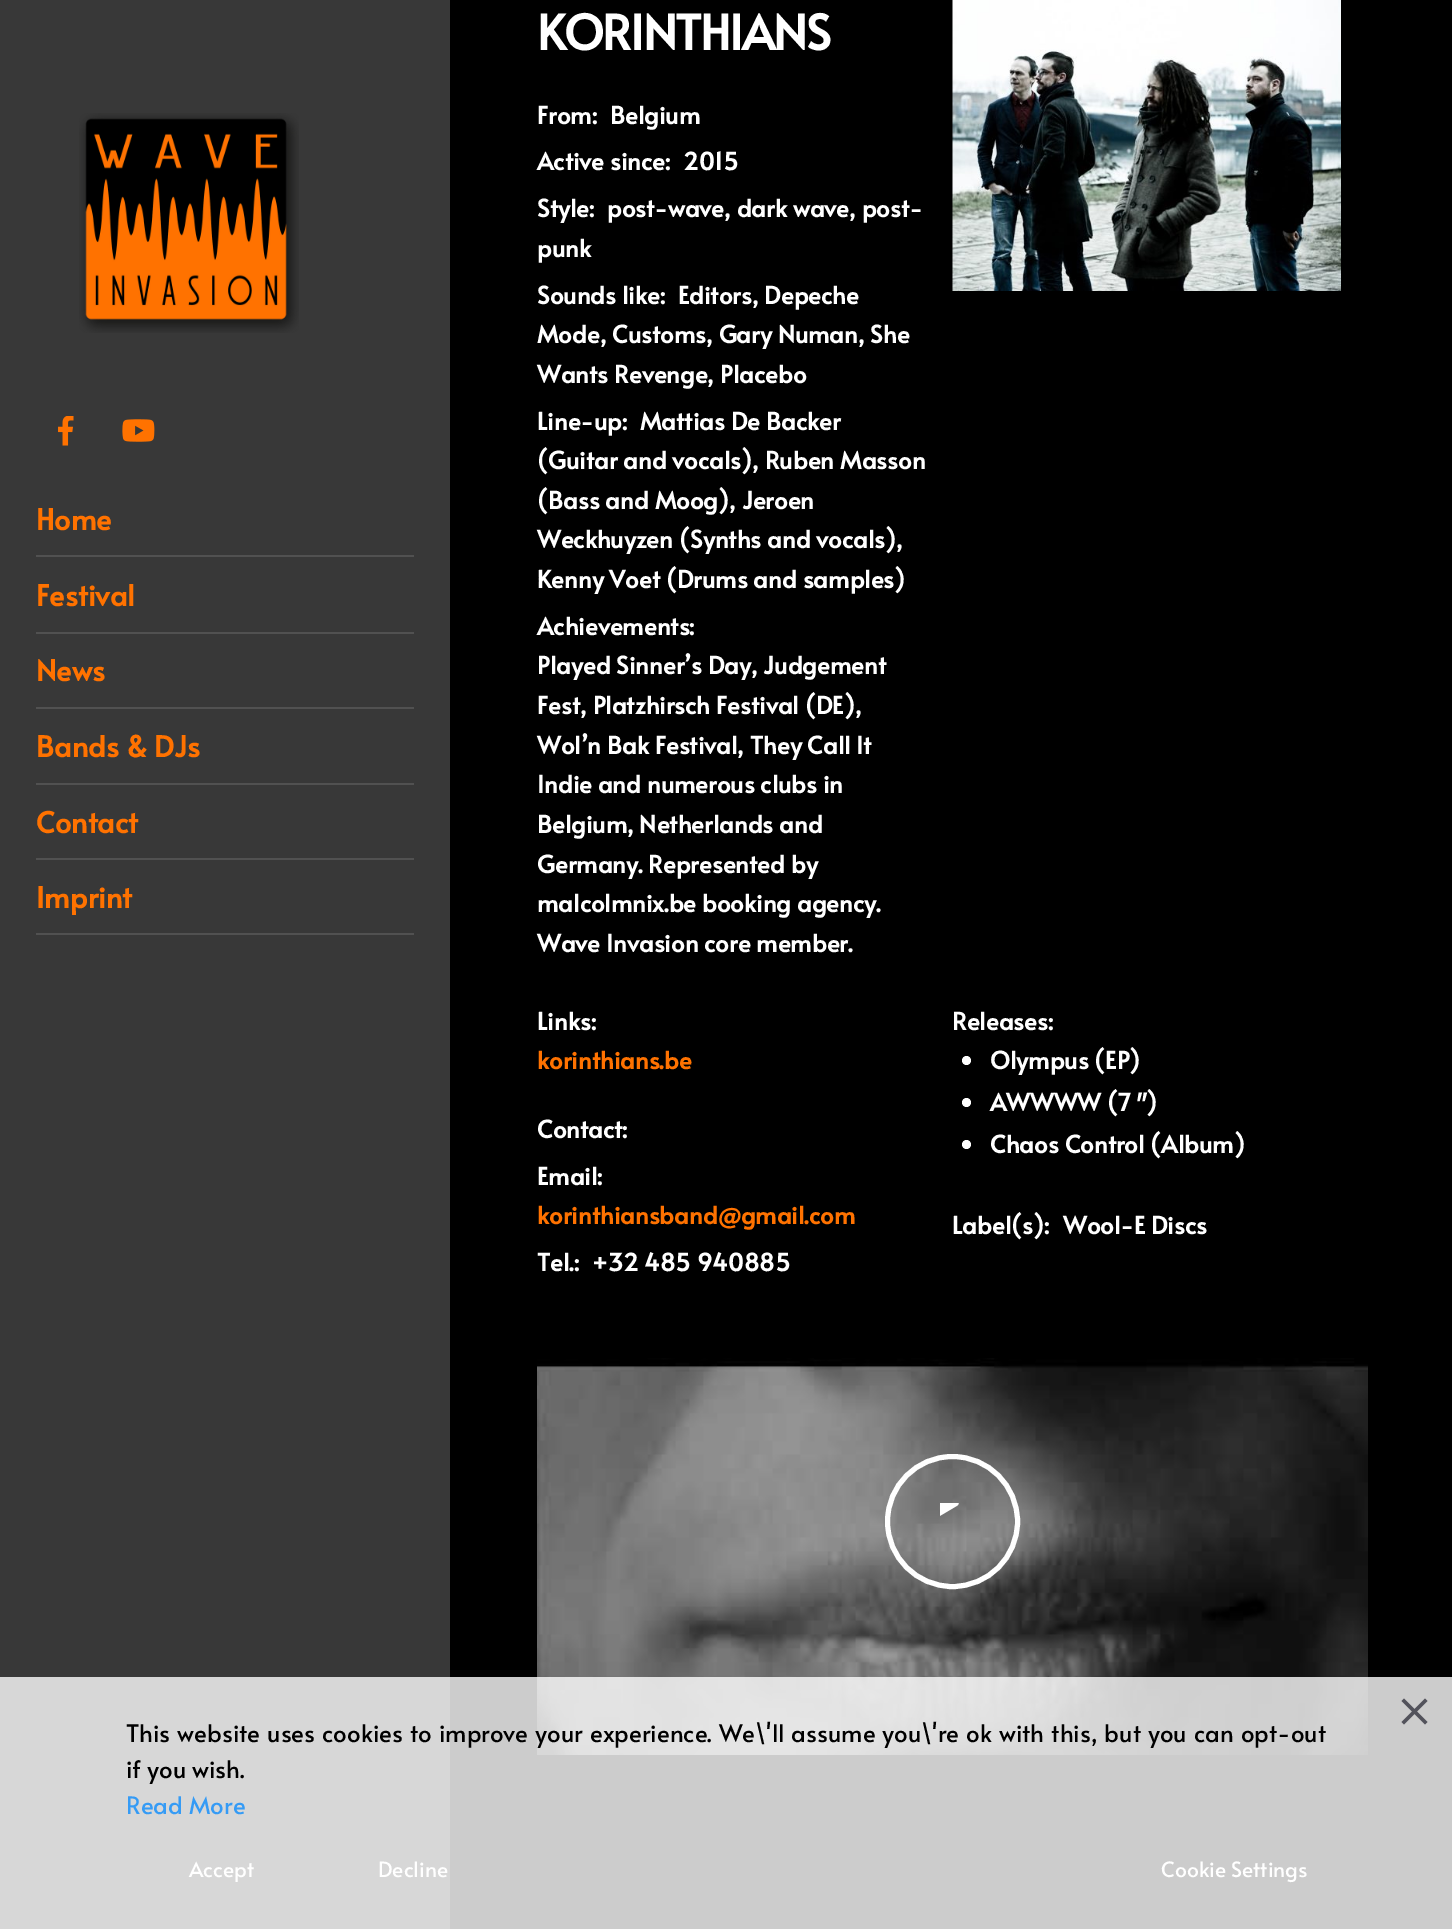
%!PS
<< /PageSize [1452 1929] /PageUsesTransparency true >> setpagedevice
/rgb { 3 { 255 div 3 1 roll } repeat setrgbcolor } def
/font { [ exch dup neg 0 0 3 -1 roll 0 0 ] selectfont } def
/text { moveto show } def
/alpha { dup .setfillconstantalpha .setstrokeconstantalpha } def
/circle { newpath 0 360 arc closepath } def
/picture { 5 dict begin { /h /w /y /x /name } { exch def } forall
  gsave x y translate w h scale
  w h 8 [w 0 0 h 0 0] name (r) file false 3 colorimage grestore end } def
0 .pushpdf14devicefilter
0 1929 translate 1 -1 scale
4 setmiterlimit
0 0 0 rgb
0 0 1452 1929 rectfill
56 56 56 rgb
0 0 450 1929 rectfill
(img_01.rgb) 79 113 220 220 picture
(img_02.rgb) 58 416 16 30 picture
(img_03.rgb) 122 419 33 23 picture
81 81 81 rgb
36 555 378 2 rectfill
36 632 378 2 rectfill
36 707 378 2 rectfill
36 783 378 2 rectfill
36 858 378 2 rectfill
36 933 378 2 rectfill
(img_04.rgb) 952 0 389 291 picture
255 255 255 rgb
966.5 1060.5 4.5 circle fill
966.5 1102.5 4.5 circle fill
966.5 1144.5 4.5 circle fill
(img_05.rgb) 537 1358 831 397 picture
5 setlinewidth
952.5 1521.5 65 circle stroke
(img_06.rgb) 940 1503 19 13 picture
0.8 alpha
0 1677 1452 252 rectfill
1 alpha
(img_07.rgb) 1401 1698 27 27 picture
/Alata-Bold 28.75 font
255 114 0 rgb
(Home) 36 530 text
(Festival) 36 606 text
(News) 36 681 text
(Bands & DJs) 36 757 text
(Contact) 36 833 text
(Imprint) 36 908 text
/Alata-Bold 48 font
255 255 255 rgb
537 50 moveto -1.5 0 (KORINTHIANS) ashow
/Alata-Bold 24 font
(From:) 537 124 text
(Belgium) 610 124 text
(Active since:) 537 170 text
(2015) 683 170 text
(Style:) 537 217 text
(post-wave, dark wave, post-) 607 217 text
(punk) 537 257 text
(Sounds like:) 537 304 text
(Editors, Depeche) 678 304 text
(Mode, Customs, Gary Numan, She) 537 343 text
(Wants Revenge, Placebo) 537 383 text
(Line-up:) 537 430 text
(Mattias De Backer) 640 430 text
(\(Guitar and vocals\), Ruben Masson) 537 469 text
(\(Bass and Moog\), Jeroen) 537 509 text
(Weckhuyzen \(Synths and vocals\),) 537 548 text
(Kenny Voet \(Drums and samples\)) 537 588 text
(Achievements:) 537 635 text
(Played Sinner’s Day, Judgement) 537 674 text
(Fest, Platzhirsch Festival \(DE\),) 537 714 text
(Wol’n Bak Festival, They Call It) 537 754 text
(Indie and numerous clubs in) 537 793 text
(Belgium, Netherlands and) 537 833 text
(Germany. Represented by) 537 873 text
(malcolmnix.be booking agency.) 537 912 text
(Wave Invasion core member.) 537 952 text
(Links:) 537 1030 text
255 114 0 rgb
(korinthians.be) 537 1069 text
255 255 255 rgb
(Contact:) 537 1138 text
(Email:) 537 1185 text
255 114 0 rgb
(korinthiansband@gmail.com) 537 1224 text
255 255 255 rgb
(Tel.:) 537 1271 text
(+32 485 940885) 592 1271 text
(Releases:) 952 1030 text
(Olympus \(EP\)) 990 1069 text
(AWWWW \(7″\)) 990 1111 text
(Chaos Control \(Album\)) 990 1153 text
(Label\(s\):) 952 1234 text
(Wool-E Discs) 1063 1234 text
/Alata-Regular 24 font
0 0 0 rgb
126 1742 moveto 1.2 0 32 (This website uses cookies to improve your experience. We\\'ll assume you\\'re ok with this, but you can opt-out) widthshow
(if you wish.) 126 1778 text
53 155 245 rgb
(Read More) 126 1814 text
/Alata-Regular 21 font
255 255 255 rgb
(Accept) 189 1877 text
(Decline) 378 1877 text
(Cookie Settings) 1161 1877 text
.poppdf14devicefilter showpage
